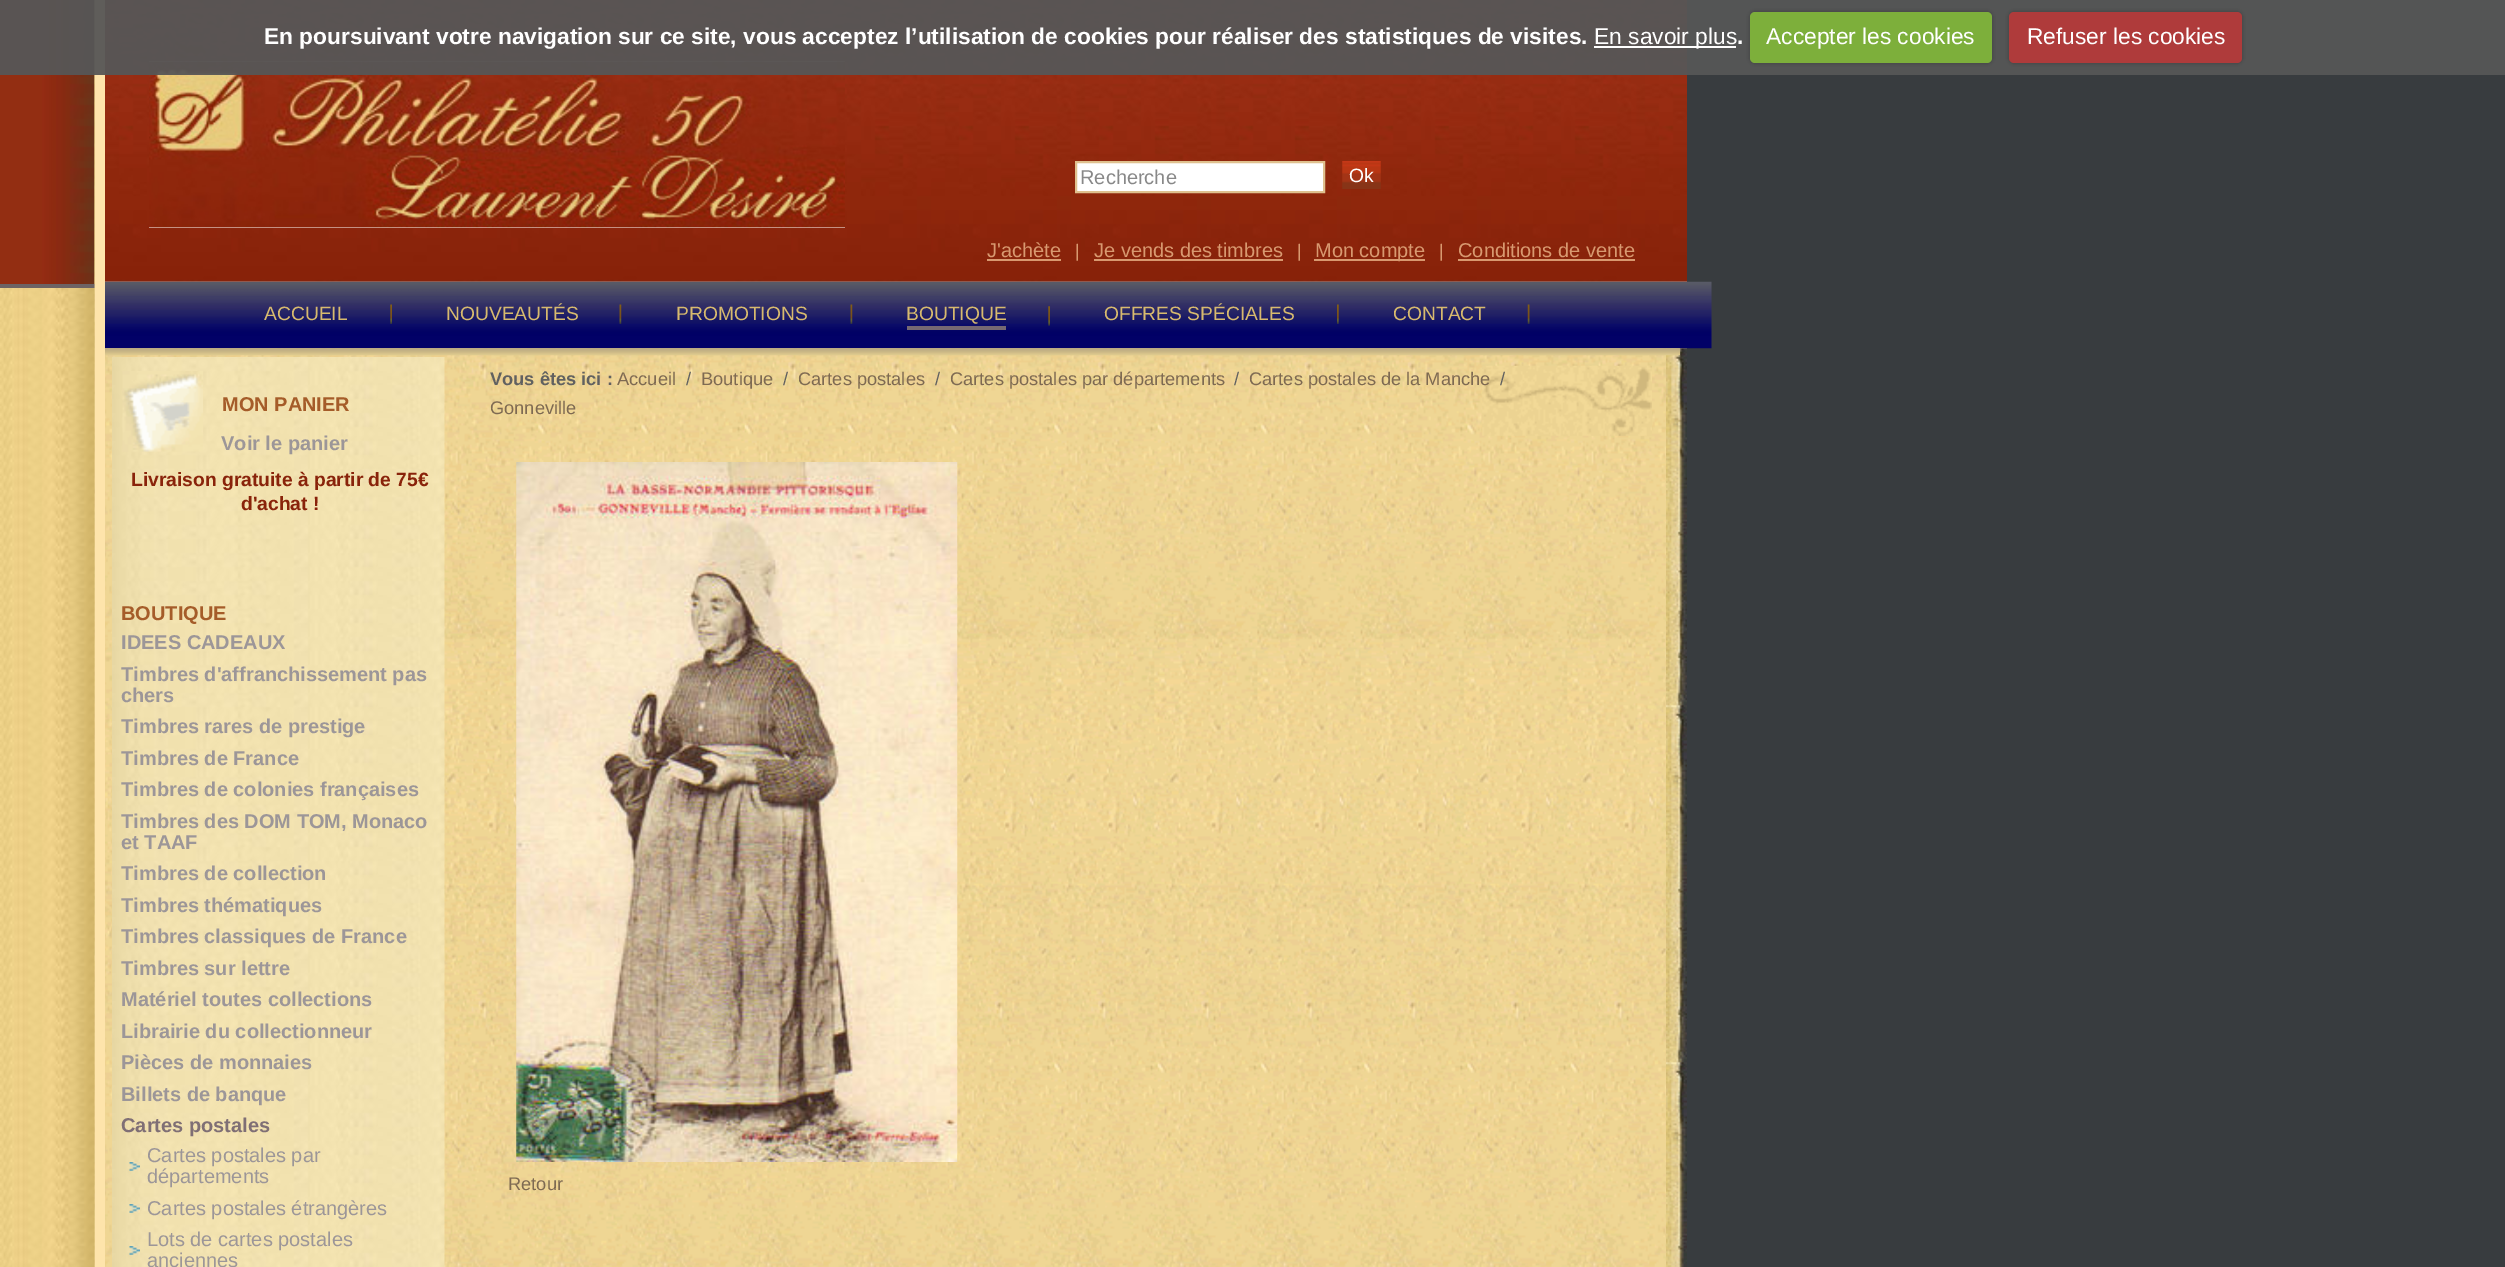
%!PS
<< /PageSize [2505 1267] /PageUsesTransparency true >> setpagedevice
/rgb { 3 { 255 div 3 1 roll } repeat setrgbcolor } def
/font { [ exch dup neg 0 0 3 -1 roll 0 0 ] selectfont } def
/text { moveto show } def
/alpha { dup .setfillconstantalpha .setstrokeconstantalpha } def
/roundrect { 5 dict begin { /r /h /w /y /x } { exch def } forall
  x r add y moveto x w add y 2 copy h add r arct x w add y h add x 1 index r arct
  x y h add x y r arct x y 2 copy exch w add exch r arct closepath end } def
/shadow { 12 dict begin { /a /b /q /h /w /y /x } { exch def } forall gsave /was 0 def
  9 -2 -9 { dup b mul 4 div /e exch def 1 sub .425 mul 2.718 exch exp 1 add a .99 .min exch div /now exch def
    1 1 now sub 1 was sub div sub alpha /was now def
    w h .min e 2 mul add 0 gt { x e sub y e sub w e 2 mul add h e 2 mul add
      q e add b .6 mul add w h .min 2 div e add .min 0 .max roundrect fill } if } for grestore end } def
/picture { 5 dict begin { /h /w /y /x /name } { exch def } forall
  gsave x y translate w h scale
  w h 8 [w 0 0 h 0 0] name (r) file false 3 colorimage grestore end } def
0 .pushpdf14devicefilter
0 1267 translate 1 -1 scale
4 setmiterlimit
56 60 63 rgb
0 0 2505 1267 rectfill
(img_01.rgb) 0 0 95 1267 picture
(img_02.rgb) 0 0 95 284 picture
109 99 100 rgb
0 284 95 4 rectfill
(img_03.rgb) 94 0 1593 1267 picture
254 228 171 rgb
95 0 10 1267 rectfill
(img_04.rgb) 105 0 1582 282 picture
255 255 255 rgb
149 61 696 167 rectfill
(img_05.rgb) 149 61 696 167 picture
0.95 alpha
86 86 86 rgb
0 0 2505 75 rectfill
1 alpha
255 255 255 rgb
1594 46 142 2 rectfill
0 0 0 rgb
1750 12 242 51 5 2 0.25 shadow
125 175 59 rgb
1750 12 242 51 5 roundrect fill
0 0 0 rgb
2009 12 233 51 5 2 0.25 shadow
175 59 59 rgb
2009 12 233 51 5 roundrect fill
255 255 255 rgb
1076 162 moveto 248 0 rlineto 0 30 rlineto -248 0 rlineto closepath gsave fill grestore
223 193 143 rgb
2 setlinewidth
stroke
(img_06.rgb) 1342 161 39 28 picture
216 153 112 rgb
987 259 74 2 rectfill
1094 259 189 2 rectfill
1314 259 111 2 rectfill
1458 259 177 2 rectfill
(img_15.rgb) 1666 348 21 919 picture
(img_07.rgb) 105 281 1607 68 picture
(img_08.rgb) 390 304 2 20 picture
(img_09.rgb) 619 304 3 20 picture
(img_10.rgb) 850 304 3 20 picture
(img_11.rgb) 1048 306 2 20 picture
118 105 115 rgb
907 326 99 4 rectfill
(img_12.rgb) 1337 304 2 20 picture
(img_13.rgb) 1527 304 3 20 picture
(img_14.rgb) 105 348 1575 8 picture
(img_16.rgb) 112 357 333 910 picture
(img_17.rgb) 122 371 81 81 picture
(img_18.rgb) 129 1162 11 9 picture
(img_19.rgb) 129 1204 11 9 picture
(img_18.rgb) 129 1246 11 9 picture
(img_20.rgb) 1482 365 170 71 picture
(img_21.rgb) 516 462 442 700 picture
/LiberationSans-Bold 22.75 font
255 255 255 rgb
(En poursuivant votre navigation sur ce site, vous acceptez l’utilisation de cookies pour réaliser des statistiques de visites.) 264 44 text
/LiberationSans-Regular 22.75 font
(En savoir plus) 1594 44 text
/LiberationSans-Bold 22.75 font
(.) 1737 44 text
/LiberationSans-Regular 22.75 font
(Accepter les cookies) 1766 44 text
(Refuser les cookies) 2027 44 text
/LiberationSans-Regular 20 font
136 136 136 rgb
(Recherche) 1080 184 text
/LiberationSans-Regular 19.25 font
255 255 255 rgb
(Ok) 1349 182 text
/LiberationSans-Regular 20 font
216 153 112 rgb
(J'achète) 987 257 text
/LiberationSans-Regular 18.25 font
(|) 1075 257 text
/LiberationSans-Regular 20 font
(Je vends des timbres) 1094 257 text
/LiberationSans-Regular 18.25 font
(|) 1297 257 text
/LiberationSans-Regular 20 font
(Mon compte) 1315 257 text
/LiberationSans-Regular 18.25 font
(|) 1439 257 text
/LiberationSans-Regular 20 font
(Conditions de vente) 1458 257 text
/LiberationSans-Regular 19.25 font
215 186 110 rgb
(ACCUEIL) 264 320 text
(NOUVEAUTÉS) 446 320 text
(PROMOTIONS) 676 320 text
(BOUTIQUE) 906 320 text
(OFFRES SPÉCIALES) 1104 320 text
(CONTACT) 1393 320 text
/LiberationSans-Bold 20 font
165 92 41 rgb
(MON PANIER) 222 411 text
156 150 152 rgb
(Voir le panier) 221 450 text
/LiberationSans-Bold 19.25 font
137 35 10 rgb
(Livraison gratuite à partir de 75€) 131 486 text
(d'achat !) 241 510 text
/LiberationSans-Bold 20 font
165 92 41 rgb
(BOUTIQUE) 121 620 text
156 150 152 rgb
(IDEES CADEAUX) 121 649 text
(Timbres d'affranchissement pas) 121 681 text
(chers) 121 702 text
(Timbres rares de prestige) 121 733 text
(Timbres de France) 121 765 text
(Timbres de colonies françaises) 121 796 text
(Timbres des DOM TOM, Monaco) 121 828 text
(et TAAF) 121 849 text
(Timbres de collection) 121 880 text
(Timbres thématiques) 121 912 text
(Timbres classiques de France) 121 943 text
(Timbres sur lettre) 121 975 text
(Matériel toutes collections) 121 1006 text
(Librairie du collectionneur) 121 1038 text
(Pièces de monnaies) 121 1069 text
(Billets de banque) 121 1101 text
127 111 117 rgb
(Cartes postales) 121 1132 text
/LiberationSans-Regular 20 font
156 150 152 rgb
(Cartes postales par) 147 1162 text
(départements) 147 1183 text
(Cartes postales étrangères) 147 1215 text
(Lots de cartes postales) 147 1246 text
(anciennes) 147 1267 text
/LiberationSans-Bold 18.25 font
97 97 96 rgb
(Vous êtes ici :) 490 385 text
/LiberationSans-Regular 18.25 font
126 106 82 rgb
(Accueil) 617 385 text
97 97 96 rgb
(/) 686 385 text
126 106 82 rgb
(Boutique) 701 385 text
97 97 96 rgb
(/) 783 385 text
126 106 82 rgb
(Cartes postales) 798 385 text
97 97 96 rgb
(/) 935 385 text
126 106 82 rgb
(Cartes postales par départements) 950 385 text
97 97 96 rgb
(/) 1234 385 text
126 106 82 rgb
(Cartes postales de la Manche) 1249 385 text
97 97 96 rgb
(/) 1500 385 text
126 106 82 rgb
(Gonneville) 490 414 text
(Retour) 508 1190 text
.poppdf14devicefilter showpage
